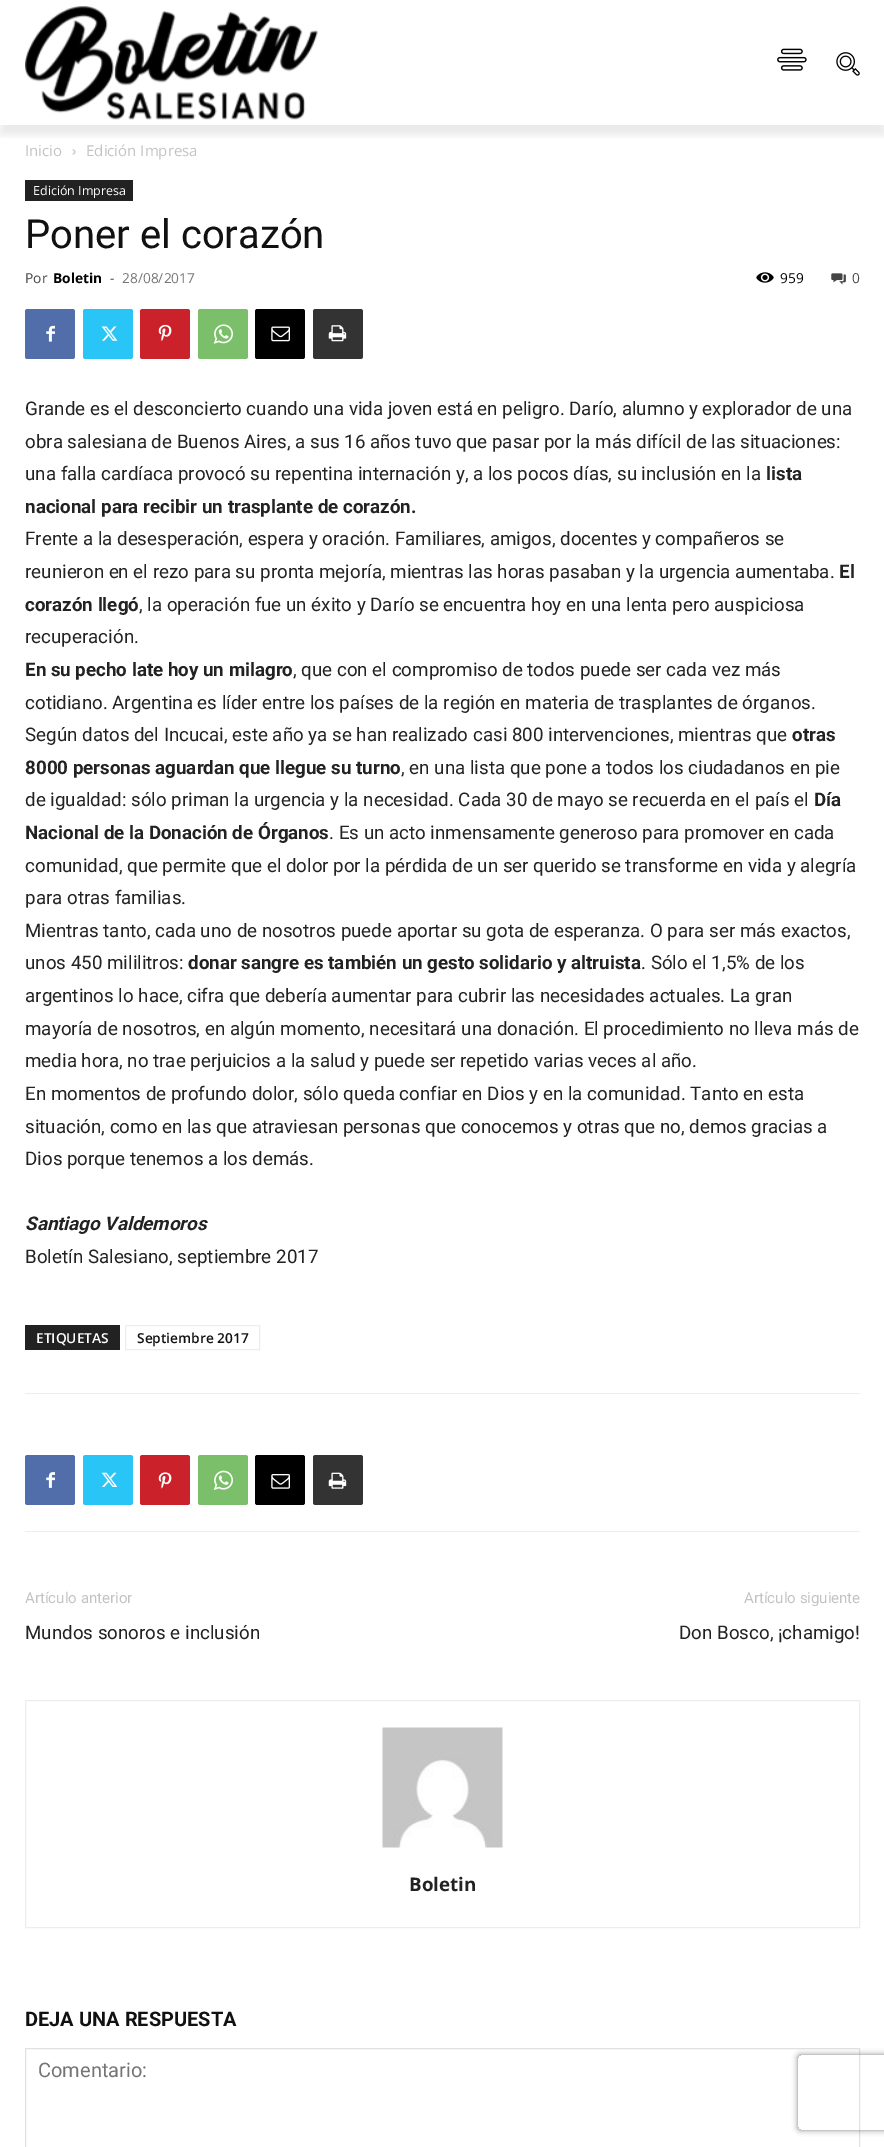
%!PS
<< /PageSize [884 2147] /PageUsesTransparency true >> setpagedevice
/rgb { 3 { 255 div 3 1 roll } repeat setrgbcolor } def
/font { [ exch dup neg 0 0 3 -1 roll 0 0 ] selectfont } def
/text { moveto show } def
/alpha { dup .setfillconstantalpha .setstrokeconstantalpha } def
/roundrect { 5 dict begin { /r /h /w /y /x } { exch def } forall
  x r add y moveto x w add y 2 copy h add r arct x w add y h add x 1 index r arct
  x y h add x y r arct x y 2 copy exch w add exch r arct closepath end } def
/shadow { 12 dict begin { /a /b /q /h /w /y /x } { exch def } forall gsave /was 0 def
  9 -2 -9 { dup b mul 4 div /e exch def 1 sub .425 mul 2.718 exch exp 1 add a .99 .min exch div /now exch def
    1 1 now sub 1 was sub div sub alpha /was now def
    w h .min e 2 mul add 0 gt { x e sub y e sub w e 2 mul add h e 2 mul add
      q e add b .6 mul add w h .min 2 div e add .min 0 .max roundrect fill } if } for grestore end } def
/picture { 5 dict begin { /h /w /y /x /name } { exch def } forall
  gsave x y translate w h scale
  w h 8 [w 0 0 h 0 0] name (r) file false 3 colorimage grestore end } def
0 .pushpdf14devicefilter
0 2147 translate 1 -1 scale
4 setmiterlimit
255 255 255 rgb
0 0 884 2147 rectfill
(img_01.rgb) 25 6 293 114 picture
(img_02.rgb) 777 48 30 23 picture
(img_03.rgb) 836 52 24 24 picture
gsave
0 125 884 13 rectclip
0 0 0 rgb
0 10 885 125 0 4 0.08 shadow
grestore
(img_04.rgb) 72 149 4 6 picture
34 34 34 rgb
25 180 108 21 rectfill
(img_05.rgb) 756 272 18 11 picture
(img_06.rgb) 831 273 15 12 picture
81 110 171 rgb
25 309 50 50 2.5 roundrect fill
(img_07.rgb) 46 325 9 17 picture
41 197 246 rgb
83 309 50 50 2.5 roundrect fill
(img_08.rgb) 101 326 17 15 picture
202 33 42 rgb
140 309 50 50 2.5 roundrect fill
(img_09.rgb) 158 324 14 17 picture
123 191 106 rgb
198 309 50 50 2.5 roundrect fill
(img_10.rgb) 213 324 20 20 picture
0 0 0 rgb
255 309 50 50 2.5 roundrect fill
(img_11.rgb) 271 326 19 16 picture
51 51 51 rgb
313 309 50 50 2.5 roundrect fill
(img_12.rgb) 328 325 19 17 picture
34 34 34 rgb
25 1325 95 25 rectfill
237 237 237 rgb
125.5 1325.5 134 24 rectstroke
25 1393 835 1 rectfill
25 1531 835 1 rectfill
81 110 171 rgb
25 1455 50 50 2.5 roundrect fill
(img_13.rgb) 46 1472 9 16 picture
41 197 246 rgb
83 1455 50 50 2.5 roundrect fill
(img_14.rgb) 101 1472 17 15 picture
202 33 42 rgb
140 1455 50 50 2.5 roundrect fill
(img_15.rgb) 158 1472 14 17 picture
123 191 106 rgb
198 1455 50 50 2.5 roundrect fill
(img_16.rgb) 213 1470 20 20 picture
0 0 0 rgb
255 1455 50 50 2.5 roundrect fill
(img_17.rgb) 271 1474 19 15 picture
51 51 51 rgb
313 1455 50 50 2.5 roundrect fill
(img_18.rgb) 328 1472 19 17 picture
237 237 237 rgb
25.5 1700.5 834 227 rectstroke
(img_19.rgb) 382 1727 121 121 picture
225 225 225 rgb
25.5 2048.5 834 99 rectstroke
gsave
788 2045 moveto 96 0 rlineto 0 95 rlineto -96 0 rlineto closepath 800.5 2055 moveto 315 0 rlineto 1.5 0 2.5 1 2.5 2.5 rcurveto 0 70 rlineto 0 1.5 -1 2.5 -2.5 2.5 rcurveto -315 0 rlineto -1.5 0 -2.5 -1 -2.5 -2.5 rcurveto 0 -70 rlineto 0 -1.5 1 -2.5 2.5 -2.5 rcurveto closepath eoclip newpath
128 128 128 rgb
798 2055 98 75 2.5 3 1 shadow
grestore
/OpenSans-Regular 15 font
195 195 195 rgb
(Inicio) 25 156 text
(Edición Impresa) 86 156 text
/OpenSans-Regular 12.5 font
255 255 255 rgb
(Edición Impresa) 33 195 text
/Roboto-Regular 40 font
17 17 17 rgb
(Poner el corazón) 25 248 text
/OpenSans-Regular 13.75 font
68 68 68 rgb
(Por) 25 283 text
/OpenSans-Bold 13.75 font
0 0 0 rgb
(Boletin) 53 283 text
/OpenSans-Regular 13.75 font
68 68 68 rgb
(-) 110 283 text
117 117 117 rgb
(28/08/2017) 122 283 text
0 0 0 rgb
(959) 780 283 text
68 68 68 rgb
(0) 852 283 text
/Roboto-Regular 18.75 font
34 34 34 rgb
(Grande es el desconcierto cuando una vida joven está en peligro. Darío, alumno y explorador de una) 25 415 text
(obra salesiana de Buenos Aires, a sus 16 años tuvo que pasar por la más difícil de las situaciones:) 25 448 text
(una falla cardíaca provocó su repentina internación y, a los pocos días, su inclusión en la) 25 480 text
/Roboto-Bold 18.75 font
(lista) 766 480 text
(nacional para recibir un trasplante de corazón.) 25 513 text
/Roboto-Regular 18.75 font
(Frente a la desesperación, espera y oración. Familiares, amigos, docentes y compañeros se) 25 545 text
(reunieron en el rezo para su pronta mejoría, mientras las horas pasaban y la urgencia aumentaba.) 25 578 text
/Roboto-Bold 18.75 font
(El) 839 578 text
(corazón llegó) 25 611 text
/Roboto-Regular 18.75 font
(, la operación fue un éxito y Darío se encuentra hoy en una lenta pero auspiciosa) 139 611 text
(recuperación.) 25 643 text
/Roboto-Bold 18.75 font
(En su pecho late hoy un milagro) 25 676 text
/Roboto-Regular 18.75 font
(, que con el compromiso de todos puede ser cada vez más) 293 676 text
(cotidiano. Argentina es líder entre los países de la región en materia de trasplantes de órganos.) 25 709 text
(Según datos del Incucai, este año ya se han realizado casi 800 intervenciones, mientras que) 25 741 text
/Roboto-Bold 18.75 font
(otras) 792 741 text
(8000 personas aguardan que llegue su turno) 25 774 text
/Roboto-Regular 18.75 font
(, en una lista que pone a todos los ciudadanos en pie) 401 774 text
(de igualdad: sólo priman la urgencia y la necesidad. Cada 30 de mayo se recuerda en el país el) 25 806 text
/Roboto-Bold 18.75 font
(Día) 814 806 text
(Nacional de la Donación de Órganos) 25 839 text
/Roboto-Regular 18.75 font
(. Es un acto inmensamente generoso para promover en cada) 329 839 text
(comunidad, que permite que el dolor por la pérdida de un ser querido se transforme en vida y alegría) 25 872 text
(para otras familias.) 25 904 text
(Mientras tanto, cada uno de nosotros puede aportar su gota de esperanza. O para ser más exactos,) 25 937 text
(unos 450 mililitros:) 25 969 text
/Roboto-Bold 18.75 font
(donar sangre es también un gesto solidario y altruista) 188 969 text
/Roboto-Regular 18.75 font
(. Sólo el 1,5% de los) 641 969 text
(argentinos lo hace, cifra que debería aumentar para cubrir las necesidades actuales. La gran) 25 1002 text
(mayoría de nosotros, en algún momento, necesitará una donación. El procedimiento no lleva más de) 25 1035 text
(media hora, no trae perjuicios a la salud y puede ser repetido varias veces al año.) 25 1067 text
(En momentos de profundo dolor, sólo queda confiar en Dios y en la comunidad. Tanto en esta) 25 1100 text
(situación, como en las que atraviesan personas que conocemos y otras que no, demos gracias a) 25 1133 text
(Dios porque tenemos a los demás.) 25 1165 text
/Roboto-BoldItalic 18.75 font
(Santiago Valdemoros) 25 1230 text
/Roboto-Regular 18.75 font
(Boletín Salesiano, septiembre 2017) 25 1263 text
/OpenSans-SemiBold 13.75 font
255 255 255 rgb
(ETIQUETAS) 36 1343 text
17 17 17 rgb
(Septiembre 2017) 137 1343 text
/Roboto-Regular 15 font
195 195 195 rgb
(Artículo anterior) 25 1603 text
/Roboto-Regular 18.75 font
34 34 34 rgb
(Mundos sonoros e inclusión) 25 1639 text
/Roboto-Regular 15 font
195 195 195 rgb
(Artículo siguiente) 744 1603 text
/Roboto-Regular 18.75 font
34 34 34 rgb
(Don Bosco, ¡chamigo!) 679 1639 text
/OpenSans-Bold 18.75 font
(Boletin) 409 1891 text
/Roboto-Bold 20 font
17 17 17 rgb
(DEJA UNA RESPUESTA) 25 2026 text
/Roboto-Regular 20 font
117 117 117 rgb
(Comentario:) 38 2077 text
.poppdf14devicefilter showpage
